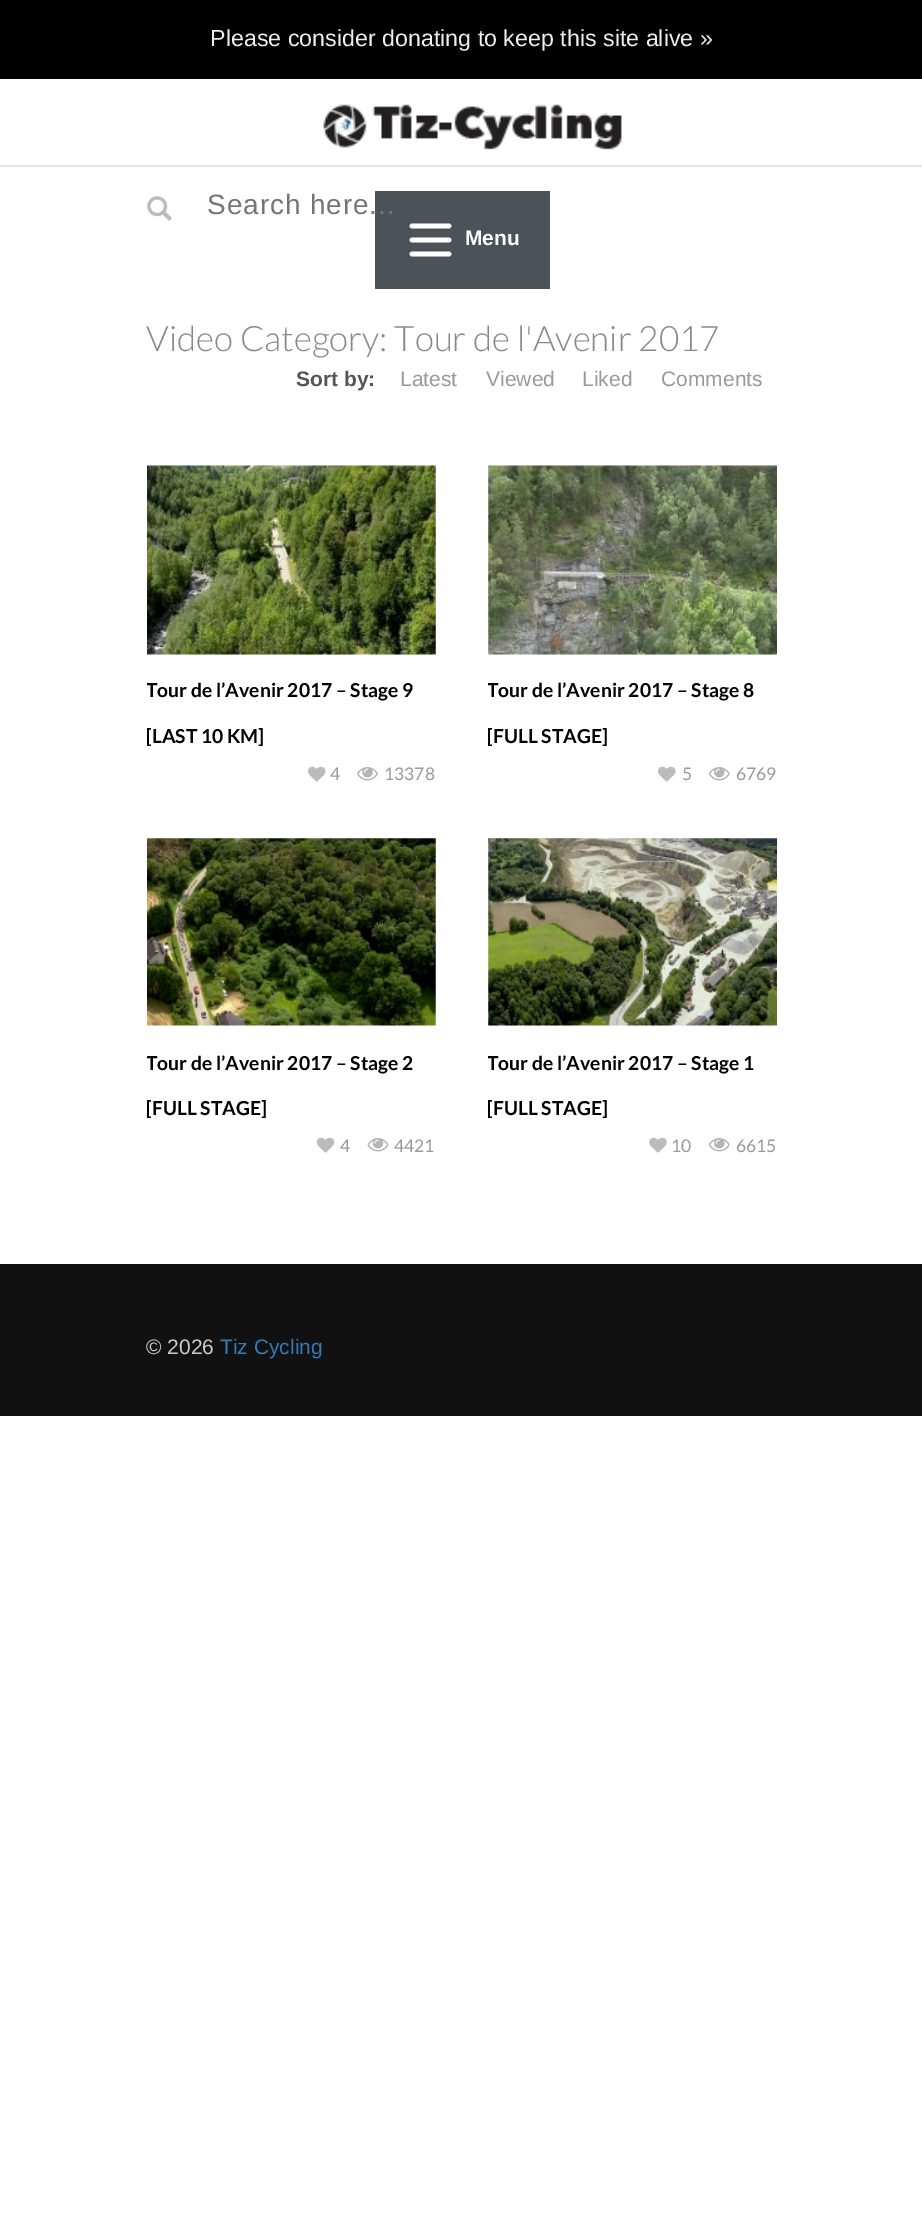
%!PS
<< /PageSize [922 2233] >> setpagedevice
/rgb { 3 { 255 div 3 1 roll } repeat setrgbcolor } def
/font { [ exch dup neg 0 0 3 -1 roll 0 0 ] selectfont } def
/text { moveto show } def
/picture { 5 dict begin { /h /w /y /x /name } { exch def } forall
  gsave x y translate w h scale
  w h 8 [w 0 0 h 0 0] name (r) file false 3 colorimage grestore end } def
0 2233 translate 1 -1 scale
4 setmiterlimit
255 255 255 rgb
0 0 922 2233 rectfill
0 0 0 rgb
0 0 922 79 rectfill
229 229 229 rgb
0 165 922 2 rectfill
(img_01.rgb) 323 104 299 46 picture
(img_02.rgb) 147 196 25 25 picture
76 83 88 rgb
375 191 175 98 rectfill
255 255 255 rgb
4.7 setlinewidth
1 setlinecap
412 254 moveto 37 0 rlineto 412 240 moveto 37 0 rlineto 412 226 moveto 37 0 rlineto stroke
(img_03.rgb) 147 465 289 190 picture
(img_04.rgb) 308 766 18 16 picture
(img_05.rgb) 357 767 21 14 picture
(img_06.rgb) 488 465 289 190 picture
(img_04.rgb) 658 766 18 16 picture
(img_07.rgb) 708 767 22 14 picture
(img_08.rgb) 147 838 289 188 picture
(img_09.rgb) 316 1137 19 16 picture
(img_10.rgb) 367 1138 22 14 picture
(img_11.rgb) 488 838 289 188 picture
(img_12.rgb) 649 1137 18 16 picture
(img_07.rgb) 708 1138 22 14 picture
17 17 17 rgb
0 1264 922 152 rectfill
/LiberationSans-Regular 23.25 font
238 238 238 rgb
(Please consider donating to keep this site alive ») 210 46 text
/LiberationSans-Regular 28 font
117 117 117 rgb
207 214 moveto 0.9 0 (Search here...) ashow
/LiberationSans-Bold 21 font
255 255 255 rgb
(Menu) 465 245 text
/Lato-Light 35 font
136 136 136 rgb
(Video Category: Tour de l'Avenir 2017) 146 351 text
/LiberationSans-Bold 21 font
85 85 85 rgb
(Sort by:) 296 386 text
/LiberationSans-Regular 21 font
153 153 153 rgb
(Latest) 400 386 text
(Viewed) 486 386 text
(Liked) 582 386 text
(Comments) 661 386 text
gsave
147 663 289 91 rectclip
/Lato-Bold 19.25 font
0 0 0 rgb
(Tour de l’Avenir 2017 – Stage 9) 146 697 text
grestore
/Lato-Bold 19.25 font
0 0 0 rgb
([LAST 10 KM]) 146 743 text
/Lato-Regular 17.5 font
153 153 153 rgb
(4) 330 780 text
(13378) 384 780 text
gsave
488 663 289 91 rectclip
/Lato-Bold 19.25 font
0 0 0 rgb
(Tour de l’Avenir 2017 – Stage 8) 487 697 text
grestore
/Lato-Bold 19.25 font
0 0 0 rgb
([FULL STAGE]) 487 743 text
/Lato-Regular 17.5 font
153 153 153 rgb
(5) 682 780 text
(6769) 736 780 text
gsave
147 1034 289 91 rectclip
/Lato-Bold 19.25 font
0 0 0 rgb
(Tour de l’Avenir 2017 – Stage 2) 146 1070 text
grestore
/Lato-Bold 19.25 font
0 0 0 rgb
([FULL STAGE]) 146 1115 text
/Lato-Regular 17.5 font
153 153 153 rgb
(4) 340 1152 text
(4421) 394 1152 text
gsave
488 1034 289 91 rectclip
/Lato-Bold 19.25 font
0 0 0 rgb
(Tour de l’Avenir 2017 – Stage 1) 487 1070 text
grestore
/Lato-Bold 19.25 font
0 0 0 rgb
([FULL STAGE]) 487 1115 text
/Lato-Regular 17.5 font
153 153 153 rgb
(10) 671 1152 text
(6615) 736 1152 text
/LiberationSans-Regular 21 font
204 204 204 rgb
(© 2026) 146 1354 text
51 122 183 rgb
(Tiz Cycling) 220 1354 text
showpage
